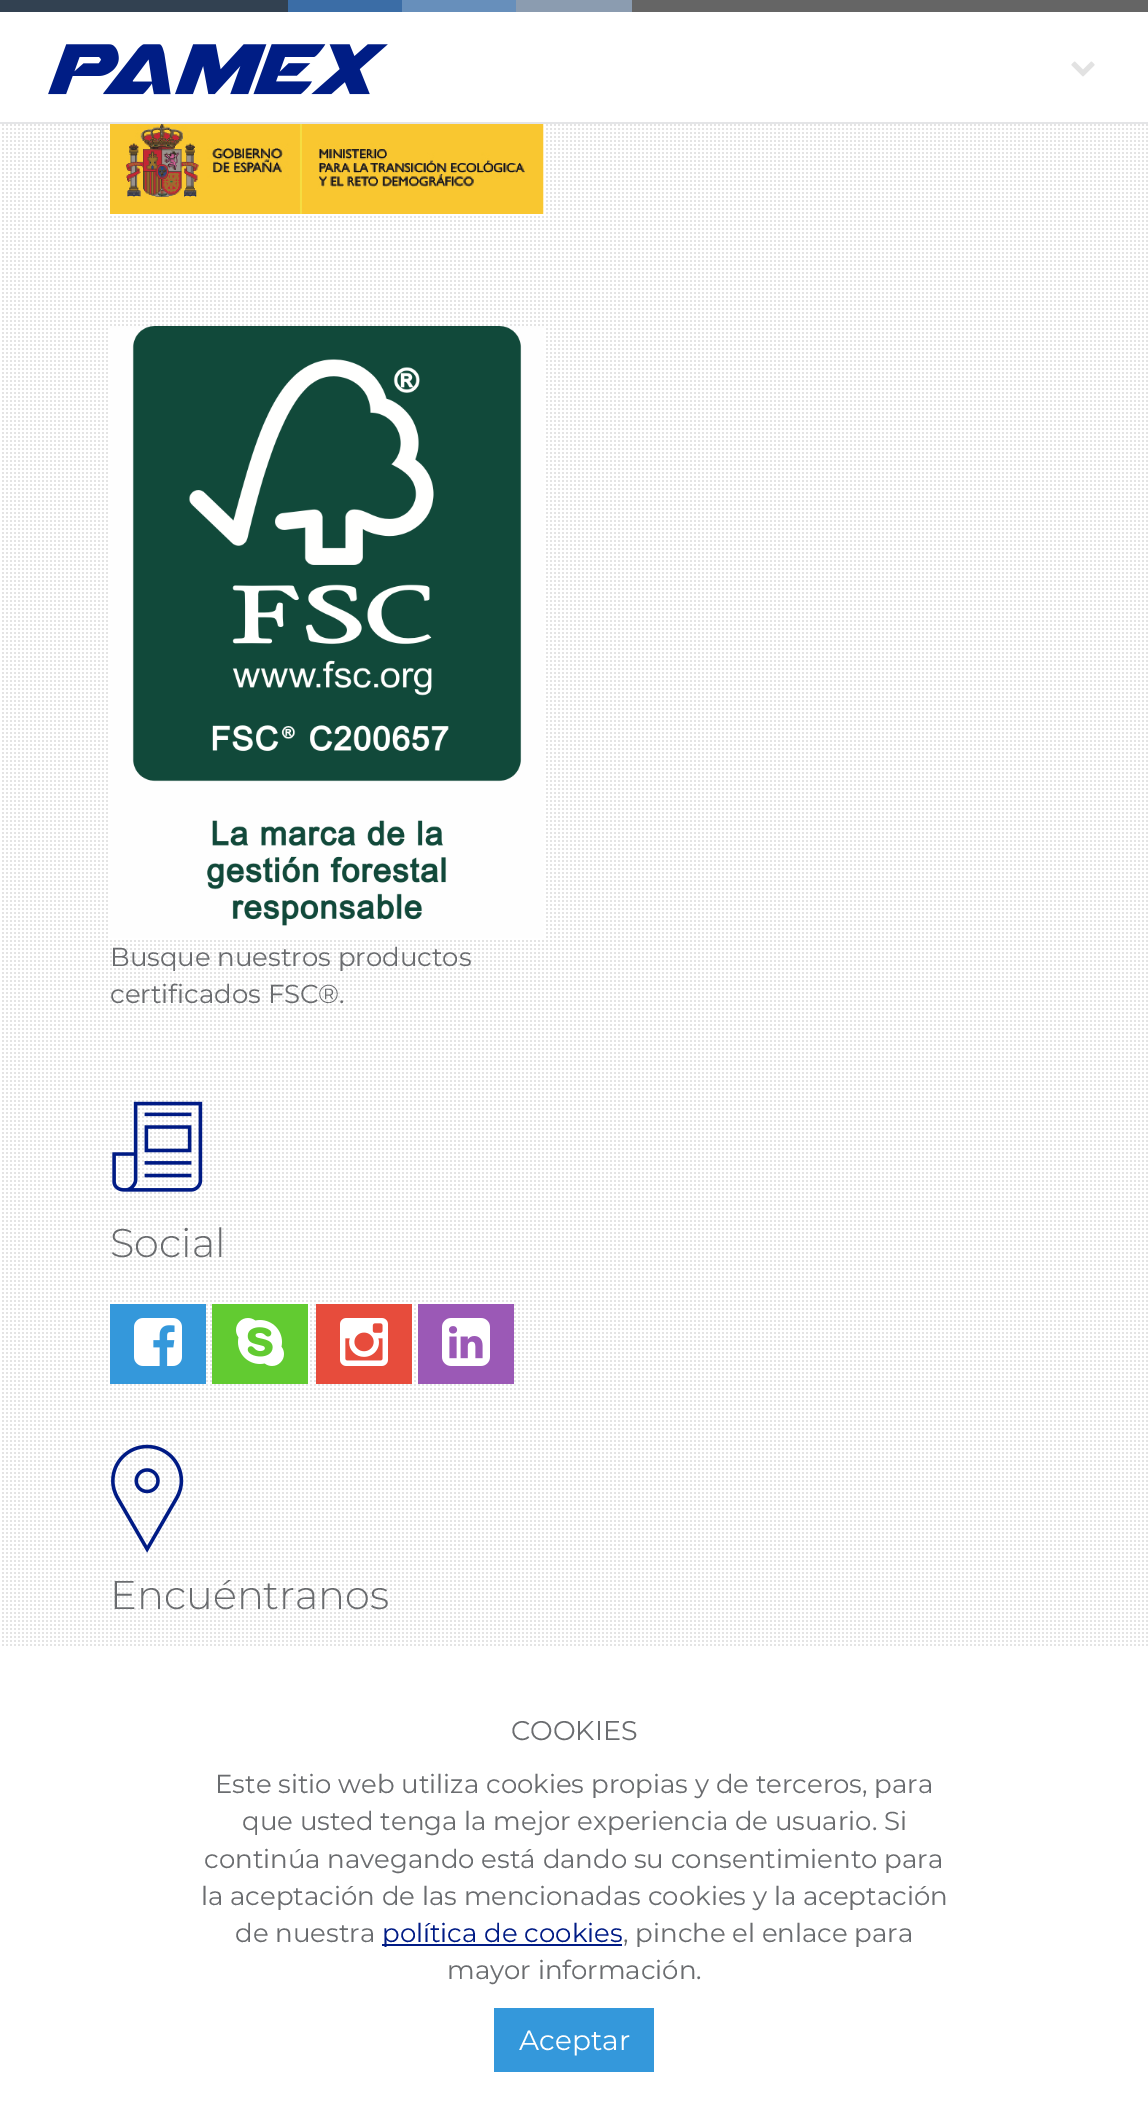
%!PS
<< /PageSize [1148 2122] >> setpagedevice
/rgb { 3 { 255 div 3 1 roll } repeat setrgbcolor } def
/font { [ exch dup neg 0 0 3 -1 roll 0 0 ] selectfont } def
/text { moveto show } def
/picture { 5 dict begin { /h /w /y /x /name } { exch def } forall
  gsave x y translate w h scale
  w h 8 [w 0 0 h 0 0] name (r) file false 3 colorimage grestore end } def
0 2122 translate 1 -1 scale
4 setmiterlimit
255 255 255 rgb
0 0 1148 2122 rectfill
228 229 231 rgb
0 122 1148 2 rectfill
50 65 81 rgb
0 0 288 12 rectfill
59 109 166 rgb
288 0 114 12 rectfill
103 143 187 rgb
402 0 114 12 rectfill
139 156 176 rgb
516 0 116 12 rectfill
101 101 101 rgb
632 0 516 12 rectfill
(img_01.rgb) 48 44 340 51 picture
(img_02.rgb) 1071 61 24 16 picture
(img_03.rgb) 2 124 1146 1522 picture
(img_04.rgb) 110 124 434 90 picture
(img_05.rgb) 110 326 434 612 picture
(img_06.rgb) 112 1101 91 91 picture
52 152 219 rgb
110 1304 96 80 rectfill
(img_07.rgb) 134 1318 48 48 picture
98 203 49 rgb
212 1304 96 80 rectfill
(img_08.rgb) 236 1318 48 48 picture
231 76 60 rgb
316 1304 96 80 rectfill
(img_09.rgb) 340 1318 48 48 picture
155 89 182 rgb
418 1304 96 80 rectfill
(img_10.rgb) 442 1318 48 48 picture
(img_11.rgb) 111 1444 73 109 picture
0 27 133 rgb
382 1944 240 2 rectfill
52 152 219 rgb
494 2008 160 64 rectfill
/Montserrat-Regular 26 font
106 108 111 rgb
(Busque nuestros productos) 110 966 text
(certificados FSC®.) 110 1003 text
/Montserrat-Light 40 font
(Social) 110 1257 text
(Encuéntranos) 110 1609 text
/Montserrat-Regular 27 font
(COOKIES) 511 1740 text
/Montserrat-Regular 26 font
(Este sitio web utiliza cookies propias y de terceros, para) 215 1793 text
(que usted tenga la mejor experiencia de usuario. Si) 242 1830 text
(continúa navegando está dando su consentimiento para) 204 1868 text
(la aceptación de las mencionadas cookies y la aceptación) 201 1905 text
(de nuestra) 235 1942 text
0 27 133 rgb
(política de cookies) 382 1942 text
106 108 111 rgb
(, pinche el enlace para) 623 1942 text
(mayor información.) 447 1979 text
/Montserrat-Regular 28 font
255 255 255 rgb
(Aceptar) 519 2050 text
showpage
